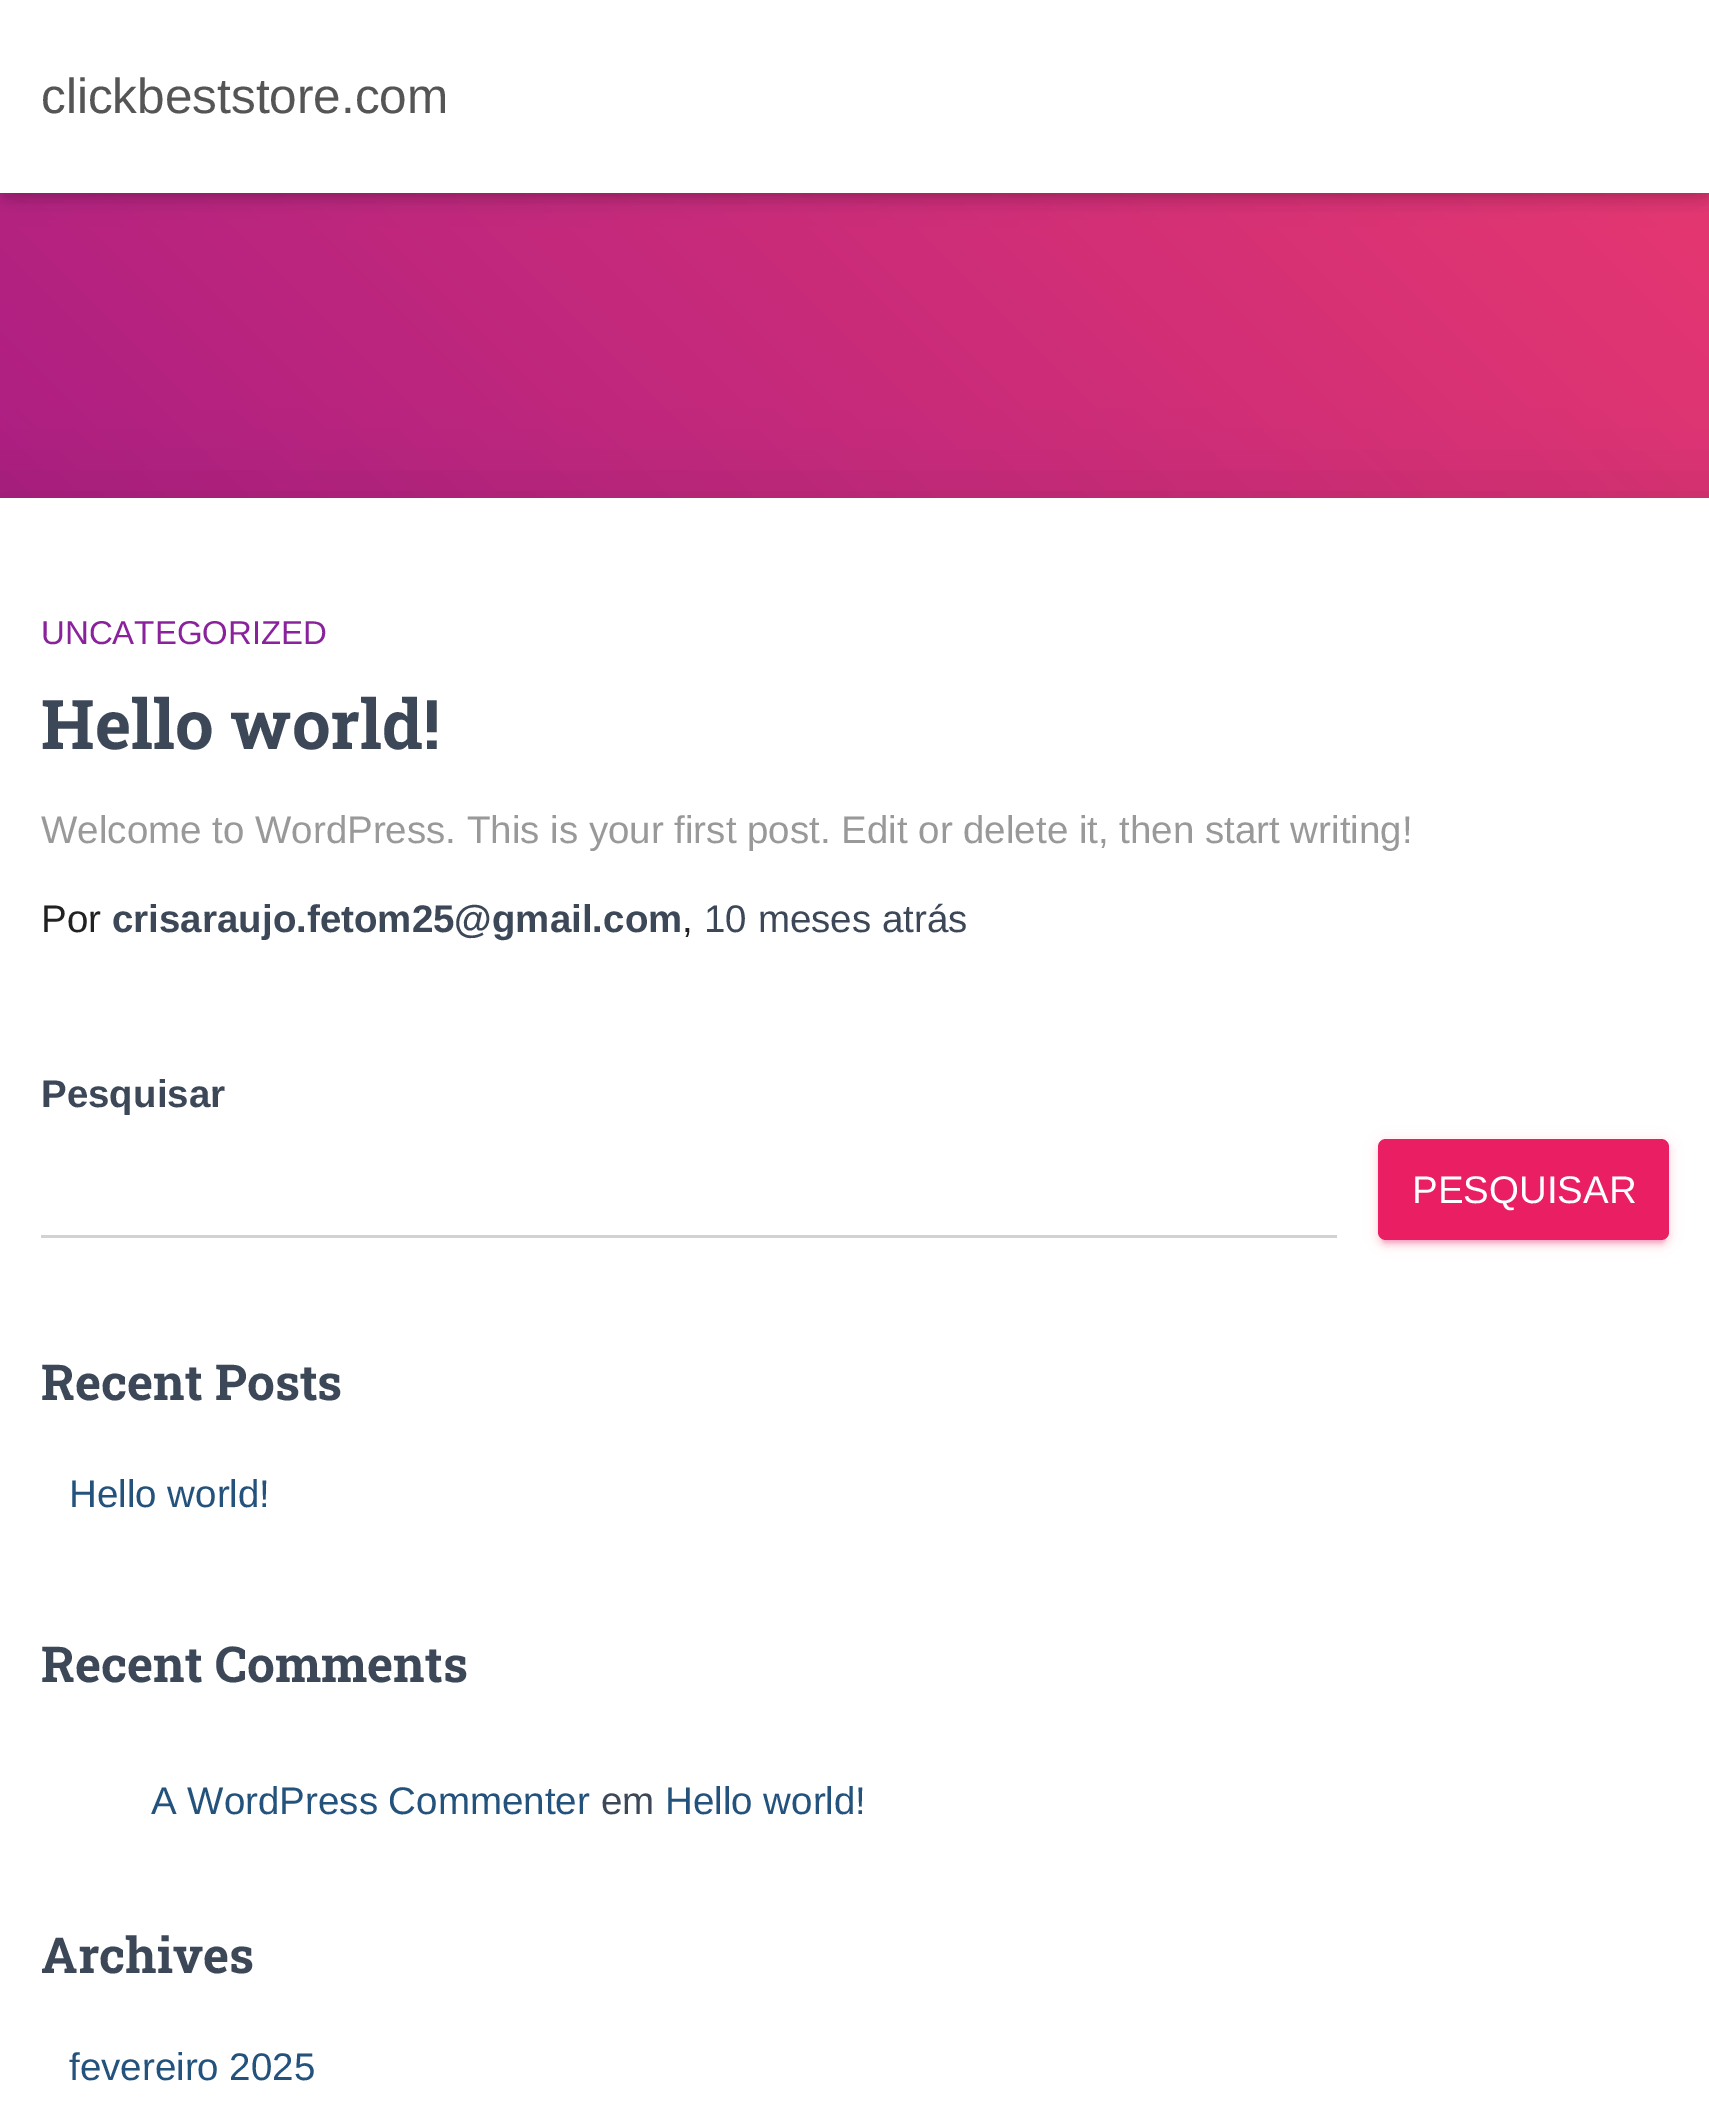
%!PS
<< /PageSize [1709 2123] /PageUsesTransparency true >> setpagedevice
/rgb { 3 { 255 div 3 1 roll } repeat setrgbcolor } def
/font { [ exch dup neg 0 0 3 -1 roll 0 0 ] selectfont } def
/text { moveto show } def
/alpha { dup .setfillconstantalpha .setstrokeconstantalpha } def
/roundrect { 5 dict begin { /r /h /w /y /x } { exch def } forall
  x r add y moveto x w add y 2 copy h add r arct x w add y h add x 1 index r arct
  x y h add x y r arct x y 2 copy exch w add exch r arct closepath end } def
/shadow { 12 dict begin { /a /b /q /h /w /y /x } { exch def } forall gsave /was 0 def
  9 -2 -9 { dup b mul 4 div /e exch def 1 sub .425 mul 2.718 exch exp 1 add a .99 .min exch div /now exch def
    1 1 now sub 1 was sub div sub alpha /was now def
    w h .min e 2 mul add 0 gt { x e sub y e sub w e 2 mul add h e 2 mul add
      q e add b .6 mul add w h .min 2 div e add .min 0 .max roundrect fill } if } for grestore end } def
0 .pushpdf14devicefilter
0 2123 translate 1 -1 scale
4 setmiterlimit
255 255 255 rgb
0 0 1709 2123 rectfill
gsave 0 193 moveto 1709 0 rlineto 0 305 rlineto -1709 0 rlineto closepath clip newpath
<< /ShadingType 2 /ColorSpace /DeviceRGB /Coords [262 925 1449 -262] /Extend [true true] /Function << /FunctionType 2 /Domain [0 1] /C0 [0.659 0.114 0.518] /C1 [0.918 0.224 0.435] /N 1 >> >> shfill grestore
0 0 0 rgb
6 17 1699 181 0 7 0.1 shadow
0 3 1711 192 0 14 0.12 shadow
17 19 1677 160 0 14 0.42 shadow
255 255 255 rgb
0 0 1709 193 rectfill
0 0 0 rgb
-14 501 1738 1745 0 41 0.12 shadow
255 255 255 rgb
0 498 1709 1625 rectfill
233 30 99 rgb
1378 1141 291 102 8 7 0.12 shadow
1383 1152 281 91 3 1.5 0.2 shadow
1378 1144 291 102 8 3 0.14 shadow
1378 1139 291 101 8 roundrect fill
210 210 210 rgb
41 1235 1296 3 rectfill
/LiberationSans-Regular 49.5 font
85 85 85 rgb
(clickbeststore.com) 41 113 text
/LiberationSans-Regular 33 font
137 34 155 rgb
(UNCATEGORIZED) 41 644 text
/RobotoSlab-Bold 68.75 font
60 72 88 rgb
(Hello world!) 41 749 text
/LiberationSans-Regular 38.5 font
153 153 153 rgb
(Welcome to WordPress. This is your first post. Edit or delete it, then start writing!) 41 843 text
33 33 33 rgb
(Por) 41 932 text
/LiberationSans-Bold 38.5 font
60 72 88 rgb
(crisaraujo.fetom25@gmail.com) 112 932 text
/LiberationSans-Regular 38.5 font
33 33 33 rgb
(,) 682 932 text
60 72 88 rgb
(10 meses atrás) 704 932 text
/LiberationSans-Bold 38.5 font
(Pesquisar) 41 1107 text
/LiberationSans-Regular 38.5 font
255 255 255 rgb
(PESQUISAR) 1412 1203 text
/RobotoSlab-Bold 49.5 font
60 72 88 rgb
(Recent Posts) 41 1400 text
/LiberationSans-Regular 38.5 font
35 82 124 rgb
(Hello world!) 69 1507 text
/RobotoSlab-Bold 49.5 font
60 72 88 rgb
(Recent Comments) 41 1682 text
/LiberationSans-Regular 38.5 font
35 82 124 rgb
(A WordPress Commenter) 151 1814 text
60 72 88 rgb
(em) 601 1814 text
35 82 124 rgb
(Hello world!) 665 1814 text
/RobotoSlab-Bold 49.5 font
60 72 88 rgb
(Archives) 41 1973 text
/LiberationSans-Regular 38.5 font
35 82 124 rgb
(fevereiro 2025) 69 2080 text
.poppdf14devicefilter showpage
